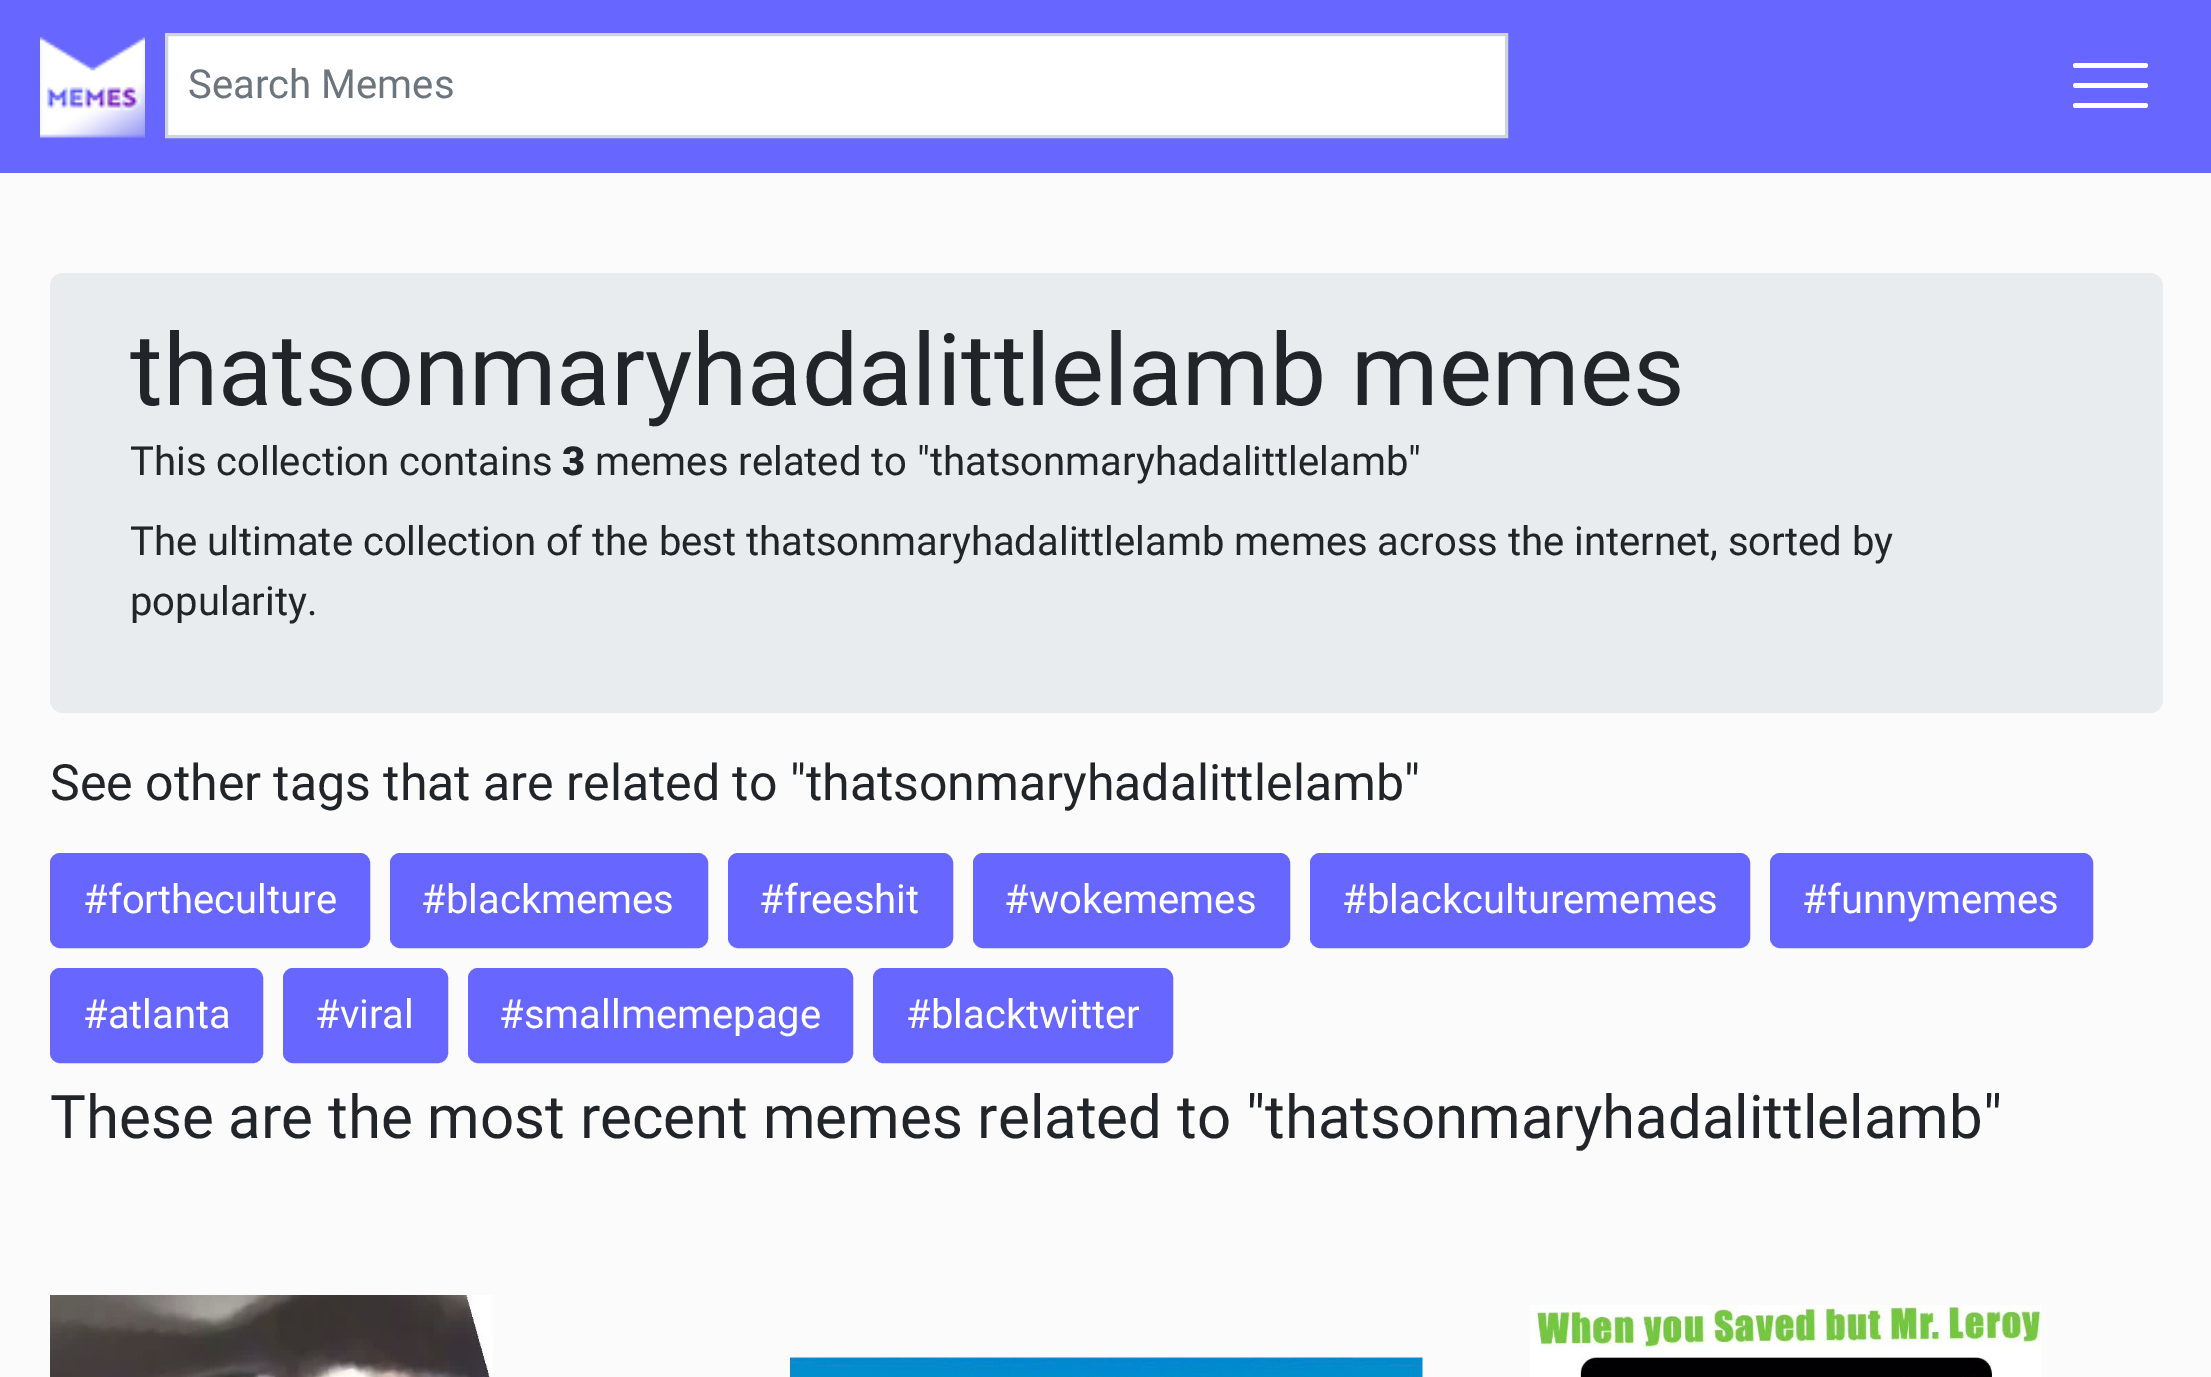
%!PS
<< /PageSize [2211 1377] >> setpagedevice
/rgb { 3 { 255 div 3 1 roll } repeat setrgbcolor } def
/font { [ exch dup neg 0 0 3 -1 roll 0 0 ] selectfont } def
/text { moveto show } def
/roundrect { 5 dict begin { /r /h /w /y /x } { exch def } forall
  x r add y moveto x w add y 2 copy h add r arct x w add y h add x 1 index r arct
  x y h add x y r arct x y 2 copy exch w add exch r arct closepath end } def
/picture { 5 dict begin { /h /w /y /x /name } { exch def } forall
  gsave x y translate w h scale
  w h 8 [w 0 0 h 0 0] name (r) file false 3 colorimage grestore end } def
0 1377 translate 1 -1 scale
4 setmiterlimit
251 251 251 rgb
0 0 2211 1377 rectfill
103 102 255 rgb
0 0 2211 173 rectfill
(img_01.rgb) 40 36 105 102 picture
255 255 255 rgb
166.5 34.5 moveto 1340 0 rlineto 0 102 rlineto -1340 0 rlineto closepath gsave fill grestore
206 212 218 rgb
3 setlinewidth
stroke
255 255 255 rgb
2073 83 75 5 2.5 roundrect fill
2073 63 75 5 2.5 roundrect fill
2073 103 75 5 2.5 roundrect fill
233 236 239 rgb
50 273 2113 440 13 roundrect fill
103 102 255 rgb
51.5 854.5 317 92 8.5 roundrect gsave fill grestore
stroke
391.5 854.5 315 92 8.5 roundrect gsave fill grestore
stroke
729.5 854.5 222 92 8.5 roundrect gsave fill grestore
stroke
974.5 854.5 314 92 8.5 roundrect gsave fill grestore
stroke
1311.5 854.5 437 92 8.5 roundrect gsave fill grestore
stroke
1771.5 854.5 320 92 8.5 roundrect gsave fill grestore
stroke
51.5 969.5 210 92 8.5 roundrect gsave fill grestore
stroke
284.5 969.5 162 92 8.5 roundrect gsave fill grestore
stroke
469.5 969.5 382 92 8.5 roundrect gsave fill grestore
stroke
874.5 969.5 297 92 8.5 roundrect gsave fill grestore
stroke
(img_02.rgb) 50 1295 443 82 picture
(img_03.rgb) 790 1357 633 20 picture
(img_04.rgb) 1530 1305 511 72 picture
/Roboto-Regular 40 font
108 117 125 rgb
(Search Memes) 188 98 text
/Roboto-Regular 100 font
33 37 41 rgb
(thatsonmaryhadalittlelamb memes) 130 405 text
/Roboto-Regular 40 font
(This collection contains) 130 475 text
/Roboto-Black 40 font
(3) 562 475 text
/Roboto-Regular 40 font
(memes related to "thatsonmaryhadalittlelamb") 595 475 text
(The ultimate collection of the best thatsonmaryhadalittlelamb memes across the internet, sorted by) 130 555 text
(popularity.) 130 615 text
/Roboto-Regular 50 font
(See other tags that are related to "thatsonmaryhadalittlelamb") 50 800 text
/Roboto-Regular 40 font
255 255 255 rgb
(#fortheculture) 83 913 text
(#blackmemes) 421 913 text
(#freeshit) 759 913 text
(#wokememes) 1004 913 text
(#blackculturememes) 1342 913 text
(#funnymemes) 1802 913 text
(#atlanta) 83 1028 text
(#viral) 315 1028 text
(#smallmemepage) 499 1028 text
(#blacktwitter) 906 1028 text
/Roboto-Regular 60 font
33 37 41 rgb
(These are the most recent memes related to "thatsonmaryhadalittlelamb") 50 1138 text
showpage
